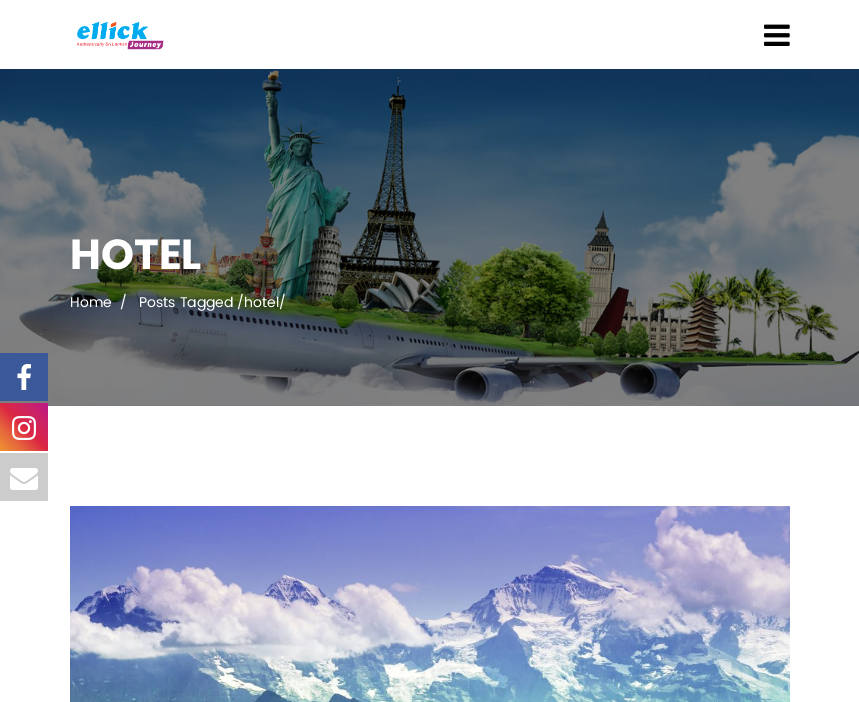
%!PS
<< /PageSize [859 702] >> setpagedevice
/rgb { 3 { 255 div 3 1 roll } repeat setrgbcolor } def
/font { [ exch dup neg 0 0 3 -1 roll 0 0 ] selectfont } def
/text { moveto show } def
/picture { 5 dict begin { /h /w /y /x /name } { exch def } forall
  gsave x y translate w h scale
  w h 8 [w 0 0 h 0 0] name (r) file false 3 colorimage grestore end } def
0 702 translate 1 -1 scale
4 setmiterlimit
255 255 255 rgb
0 0 859 702 rectfill
(img_01.rgb) 76 21 88 29 picture
(img_02.rgb) 764 24 26 22 picture
(img_03.rgb) 0 69 859 337 picture
(img_04.rgb) 70 506 720 196 picture
59 89 152 rgb
0 353 48 48 rectfill
(img_05.rgb) 17 364 14 26 picture
gsave 0 403 moveto 48 0 rlineto 0 48 rlineto -48 0 rlineto closepath clip newpath
<< /ShadingType 2 /ColorSpace /DeviceRGB /Coords [0 451 48 403] /Extend [true true] /Function << /FunctionType 3 /Domain [0 1] /Functions [<< /FunctionType 2 /Domain [0 1] /C0 [0.941 0.58 0.2] /C1 [0.902 0.408 0.235] /N 1 >> << /FunctionType 2 /Domain [0 1] /C0 [0.902 0.408 0.235] /C1 [0.863 0.153 0.263] /N 1 >> << /FunctionType 2 /Domain [0 1] /C0 [0.863 0.153 0.263] /C1 [0.8 0.137 0.4] /N 1 >> << /FunctionType 2 /Domain [0 1] /C0 [0.8 0.137 0.4] /C1 [0.737 0.094 0.533] /N 1 >>] /Bounds [0.25 0.5 0.75] /Encode [0 1 0 1 0 1 0 1] >> >> shfill grestore
(img_06.rgb) 12 416 24 24 picture
204 204 204 rgb
0 453 48 48 rectfill
(img_07.rgb) 10 468 28 22 picture
/Poppins-Bold 42 font
255 255 255 rgb
(HOTEL) 70 269 text
/Poppins-Regular 14 font
(Home) 70 307 text
(/) 120 307 text
(Posts Tagged /hotel/) 139 307 text
showpage
